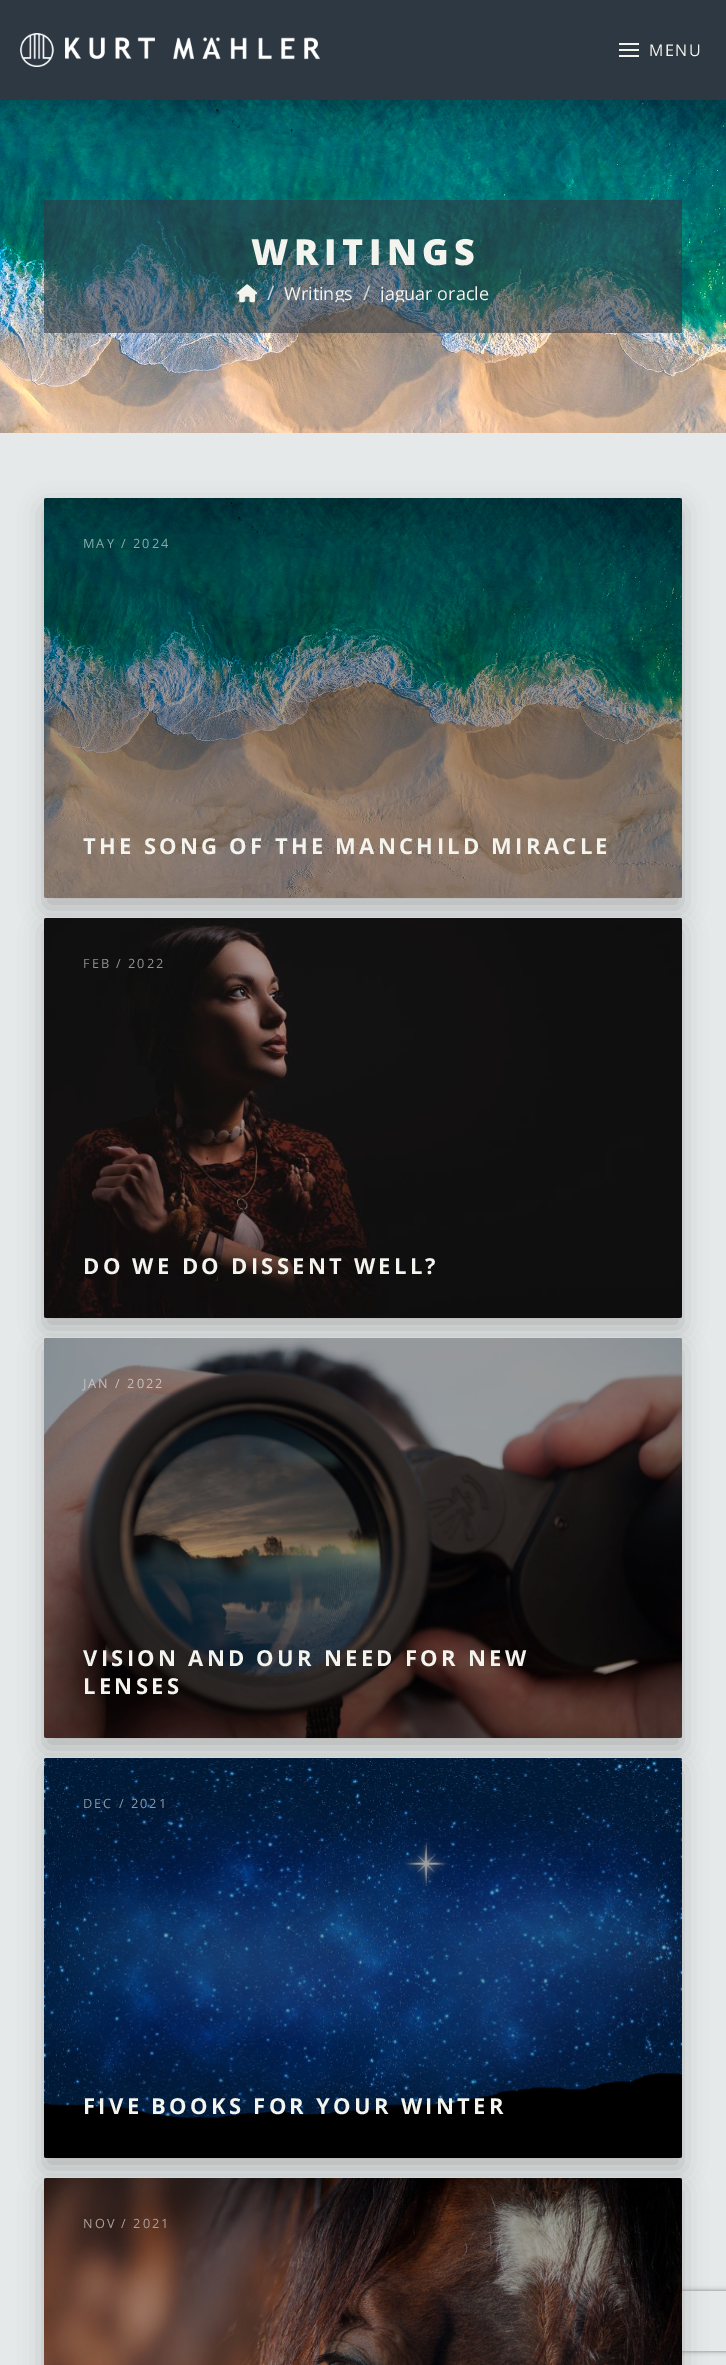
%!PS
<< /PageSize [726 2365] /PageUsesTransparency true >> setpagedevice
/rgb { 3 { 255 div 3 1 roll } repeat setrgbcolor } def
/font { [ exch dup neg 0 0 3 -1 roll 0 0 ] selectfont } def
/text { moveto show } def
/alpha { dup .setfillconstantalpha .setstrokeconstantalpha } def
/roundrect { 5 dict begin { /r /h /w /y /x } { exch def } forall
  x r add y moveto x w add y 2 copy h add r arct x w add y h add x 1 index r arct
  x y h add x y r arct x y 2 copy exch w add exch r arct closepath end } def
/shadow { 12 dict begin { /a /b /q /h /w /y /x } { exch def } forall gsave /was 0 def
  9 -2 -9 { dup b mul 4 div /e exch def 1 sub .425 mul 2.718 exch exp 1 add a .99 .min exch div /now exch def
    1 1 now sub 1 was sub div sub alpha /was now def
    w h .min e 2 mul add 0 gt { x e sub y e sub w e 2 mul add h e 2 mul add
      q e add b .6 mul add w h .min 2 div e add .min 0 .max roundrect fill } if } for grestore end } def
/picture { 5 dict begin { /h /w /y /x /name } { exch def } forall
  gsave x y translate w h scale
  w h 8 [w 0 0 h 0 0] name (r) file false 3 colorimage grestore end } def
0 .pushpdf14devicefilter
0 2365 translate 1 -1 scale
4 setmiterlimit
230 233 233 rgb
0 0 726 2365 rectfill
(img_02.rgb) 0 100 726 333 picture
0 0 0 rgb
0 3 726 100 0 12.5 0.15 shadow
46 56 66 rgb
0 0 726 100 rectfill
(img_01.rgb) 20 33 300 34 picture
244 244 239 rgb
619 43 20 2 rectfill
619 49 20 2 rectfill
619 55 20 2 rectfill
0.6 alpha
46 56 66 rgb
44 200 638 133 rectfill
1 alpha
(img_03.rgb) 237 284 20 19 picture
0 0 0 rgb
44 508 638 400 2 12 0.22 shadow
(img_04.rgb) 44 498 638 400 picture
0.37 alpha
44 498 638 400 2 roundrect fill
1 alpha
44 928 638 400 2 12 0.22 shadow
(img_05.rgb) 44 918 638 400 picture
0.37 alpha
44 918 638 400 2 roundrect fill
1 alpha
44 1348 638 400 2 12 0.22 shadow
(img_06.rgb) 44 1338 638 400 picture
0.37 alpha
44 1338 638 400 2 roundrect fill
1 alpha
44 1768 638 400 2 12 0.22 shadow
(img_07.rgb) 44 1758 638 400 picture
0.37 alpha
44 1758 638 400 2 roundrect fill
1 alpha
44 2188 638 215 2 12 0.22 shadow
gsave
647 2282 moveto 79 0 rlineto 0 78 rlineto -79 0 rlineto closepath 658 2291 moveto 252 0 rlineto 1 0 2 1 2 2 rcurveto 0 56 rlineto 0 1 -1 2 -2 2 rcurveto -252 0 rlineto -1 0 -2 -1 -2 -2 rcurveto 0 -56 rlineto 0 -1 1 -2 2 -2 rcurveto closepath eoclip newpath
128 128 128 rgb
656 2291 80 60 2 2.5 1 shadow
grestore
(img_08.rgb) 44 2178 638 187 picture
0.37 alpha
44 2178 638 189 2 roundrect fill
/OpenSans-Regular 16 font
1 alpha
244 244 239 rgb
649 56 moveto 1.5 0 (MENU) ashow
/OpenSans-ExtraBold 36 font
251 265 moveto 5.5 0 (WRITINGS) ashow
/OpenSans-Regular 20 font
198 210 211 rgb
(/) 267 300 text
gsave
284 284 69 18 rectclip
/OpenSans-Regular 18 font
244 244 239 rgb
(Writings) 284 300 text
grestore
210 213 212 rgb
(/) 363 300 text
gsave
380 284 109 18 rectclip
/OpenSans-Regular 18 font
244 244 239 rgb
(jaguar oracle) 380 300 text
grestore
/OpenSans-Regular 12.75 font
140 170 171 rgb
83 548 moveto 2 0 (MAY / 2024) ashow
/OpenSans-Bold 22 font
244 244 239 rgb
83 854 moveto 3.3 0 (THE SONG OF THE MANCHILD MIRACLE) ashow
/OpenSans-Regular 12.75 font
147 147 147 rgb
83 968 moveto 2 0 (FEB / 2022) ashow
/OpenSans-Bold 22 font
244 244 239 rgb
83 1274 moveto 3.3 0 (DO WE DO DISSENT WELL?) ashow
/OpenSans-Regular 12.75 font
199 192 190 rgb
83 1388 moveto 2 0 (JAN / 2022) ashow
/OpenSans-Bold 22 font
244 244 239 rgb
83 1666 moveto 3.3 0 (VISION AND OUR NEED FOR NEW) ashow
83 1694 moveto 3.3 0 (LENSES) ashow
/OpenSans-Regular 12.75 font
141 153 166 rgb
83 1808 moveto 2 0 (DEC / 2021) ashow
/OpenSans-Bold 22 font
244 244 239 rgb
83 2114 moveto 3.3 0 (FIVE BOOKS FOR YOUR WINTER) ashow
/OpenSans-Regular 12.75 font
171 159 155 rgb
83 2228 moveto 2 0 (NOV / 2021) ashow
.poppdf14devicefilter showpage
